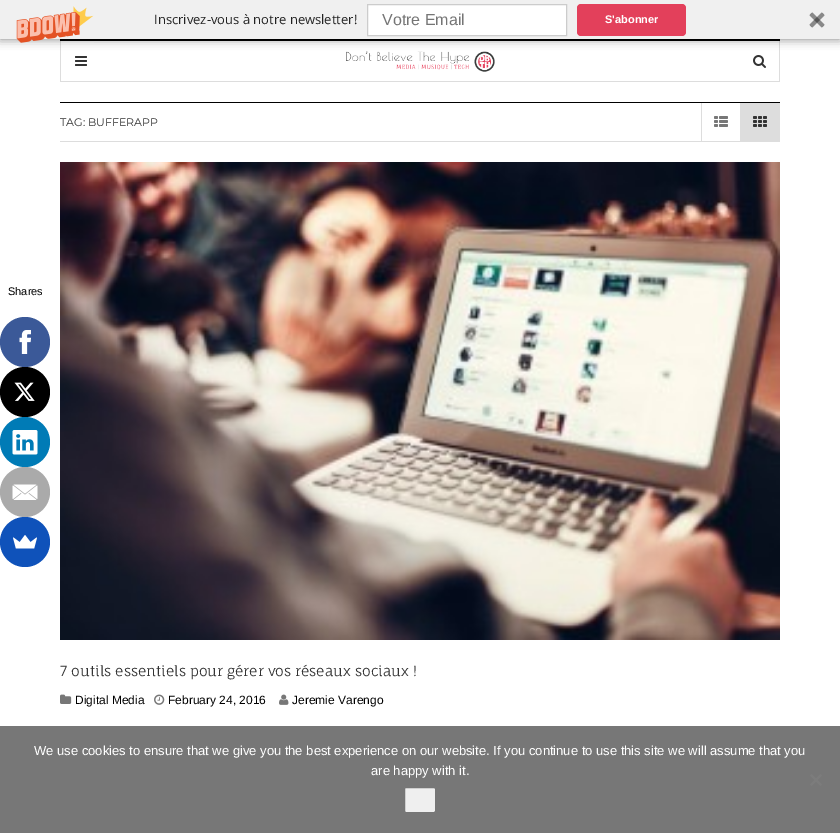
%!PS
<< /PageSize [840 833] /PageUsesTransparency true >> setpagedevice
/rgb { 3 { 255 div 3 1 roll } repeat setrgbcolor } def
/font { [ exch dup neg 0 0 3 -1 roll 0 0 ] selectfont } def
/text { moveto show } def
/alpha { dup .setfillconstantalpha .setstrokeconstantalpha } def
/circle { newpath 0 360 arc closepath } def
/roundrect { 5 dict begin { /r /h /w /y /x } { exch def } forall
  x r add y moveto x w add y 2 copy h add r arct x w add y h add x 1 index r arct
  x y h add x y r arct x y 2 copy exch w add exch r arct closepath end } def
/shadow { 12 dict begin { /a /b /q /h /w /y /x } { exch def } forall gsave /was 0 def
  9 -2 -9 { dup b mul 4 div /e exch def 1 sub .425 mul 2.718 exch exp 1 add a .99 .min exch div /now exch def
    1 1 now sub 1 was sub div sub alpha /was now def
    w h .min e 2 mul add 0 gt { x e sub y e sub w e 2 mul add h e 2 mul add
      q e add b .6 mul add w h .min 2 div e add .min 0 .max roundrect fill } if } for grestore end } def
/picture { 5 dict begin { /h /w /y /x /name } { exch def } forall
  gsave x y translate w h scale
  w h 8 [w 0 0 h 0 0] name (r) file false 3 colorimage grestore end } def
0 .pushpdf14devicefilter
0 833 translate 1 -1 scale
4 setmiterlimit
255 255 255 rgb
0 0 840 833 rectfill
0 0 0 rgb
60 39 720 2 rectfill
221 221 221 rgb
779 41 1 41 rectfill
60 81 720 1 rectfill
60 41 1 41 rectfill
(img_09.rgb) 346 51 149 21 picture
0 0 0 rgb
0 0 840 39 0 5 0.5 shadow
240 240 240 rgb
0 0 840 39 rectfill
(img_01.rgb) 16 6 78 37 picture
255 255 255 rgb
367.5 4.5 moveto 199 0 rlineto 0 31 rlineto -199 0 rlineto closepath gsave fill grestore
204 204 204 rgb
stroke
227 64 91 rgb
577 4 109 32 4 roundrect fill
(img_02.rgb) 809 12 16 16 picture
59 89 152 rgb
25 342 25 circle fill
(img_03.rgb) 19 330 12 24 picture
0 0 0 rgb
25 392 25 circle fill
(img_04.rgb) 14 382 21 19 picture
0 123 182 rgb
25 442 25 circle fill
(img_05.rgb) 12 430 26 25 picture
170 170 170 rgb
25 492 25 circle fill
(img_06.rgb) 12 484 26 16 picture
15 82 186 rgb
25 542 25 circle fill
(img_07.rgb) 13 535 24 14 picture
(img_08.rgb) 75 56 12 10 picture
(img_10.rgb) 753 55 13 13 picture
0 0 0 rgb
60 102 720 1 rectfill
221 221 221 rgb
60 141 680 1 rectfill
701 103 1 39 rectfill
740 103 40 39 rectfill
(img_11.rgb) 714 116 14 11 picture
(img_12.rgb) 753 116 14 11 picture
(img_13.rgb) 60 162 720 478 picture
(img_14.rgb) 60 694 12 10 picture
(img_15.rgb) 154 694 11 11 picture
(img_16.rgb) 279 694 10 11 picture
119 119 119 rgb
0 726 840 107 rectfill
124 124 124 rgb
820.5 774 moveto 1.5 1.5 rlineto -10.5 10.5 rlineto -1.5 -1.5 rlineto closepath fill
810 775.5 moveto 1.5 -1.5 rlineto 10.5 10.5 rlineto -1.5 1.5 rlineto closepath fill
239 239 239 rgb
404.5 787.5 31 25 1.5 roundrect gsave fill grestore
118 118 118 rgb
stroke
/OpenSans-Regular 13 font
34 34 34 rgb
(Inscrivez-vous à notre newsletter!) 154 24 text
/LiberationSans-Regular 16 font
117 117 117 rgb
(Votre Email) 382 25 text
/LiberationSans-Bold 11 font
255 255 255 rgb
(S'abonner) 605 23 text
/LiberationSans-Regular 11 font
0 0 0 rgb
(Shares) 8 295 text
/Montserrat-Regular 11 font
51 51 51 rgb
(TAG: BUFFERAPP) 60 126 text
/FaunaOne-Regular 14 font
(7 outils essentiels pour gérer vos réseaux sociaux !) 60 676 text
/LiberationSans-Regular 12 font
0 0 0 rgb
(Digital Media) 75 704 text
(February 24, 2016) 168 704 text
(Jeremie Varengo) 292 704 text
/LiberationSans-Regular 13 font
255 255 255 rgb
(We use cookies to ensure that we give you the best experience on our website. If you continue to use this site we will assume that you) 34 755 text
(are happy with it.) 371 775 text
.poppdf14devicefilter showpage
